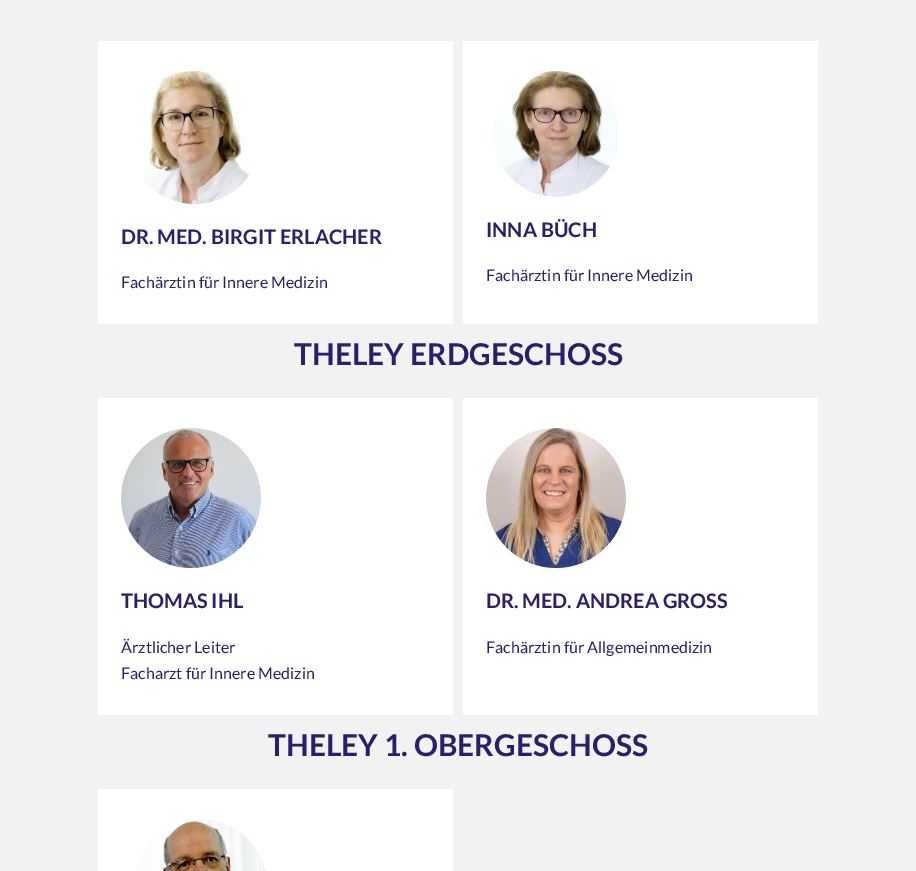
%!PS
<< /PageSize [916 871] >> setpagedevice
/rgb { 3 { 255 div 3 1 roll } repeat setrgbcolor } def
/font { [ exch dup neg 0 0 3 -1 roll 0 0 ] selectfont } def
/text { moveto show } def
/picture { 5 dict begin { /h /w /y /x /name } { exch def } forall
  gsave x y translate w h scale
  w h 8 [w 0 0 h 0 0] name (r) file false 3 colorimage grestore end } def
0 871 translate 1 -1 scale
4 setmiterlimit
242 242 242 rgb
0 0 916 871 rectfill
255 255 255 rgb
98 41 355 283 rectfill
(img_01.rgb) 143 71 107 133 picture
463 41 355 283 rectfill
(img_02.rgb) 493 71 126 126 picture
98 398 355 317 rectfill
(img_03.rgb) 121 428 140 140 picture
463 398 355 317 rectfill
(img_04.rgb) 486 428 140 140 picture
98 789 355 82 rectfill
(img_05.rgb) 136 819 130 52 picture
/Lato-Bold 20 font
42 31 109 rgb
(DR. MED. BIRGIT ERLACHER) 121 244 text
/Lato-Regular 16 font
(Fachärztin für Innere Medizin) 121 288 text
/Lato-Bold 20 font
(INNA BÜCH) 486 237 text
/Lato-Regular 16 font
(Fachärztin für Innere Medizin) 486 281 text
/Lato-Bold 30 font
(THELEY ERDGESCHOSS) 294 365 text
/Lato-Bold 20 font
(THOMAS IHL) 121 608 text
/Lato-Regular 16 font
(Ärztlicher Leiter) 121 653 text
(Facharzt für Innere Medizin) 121 679 text
/Lato-Bold 20 font
(DR. MED. ANDREA GROSS) 486 608 text
/Lato-Regular 16 font
(Fachärztin für Allgemeinmedizin) 486 653 text
/Lato-Bold 30 font
(THELEY 1. OBERGESCHOSS) 268 756 text
showpage
